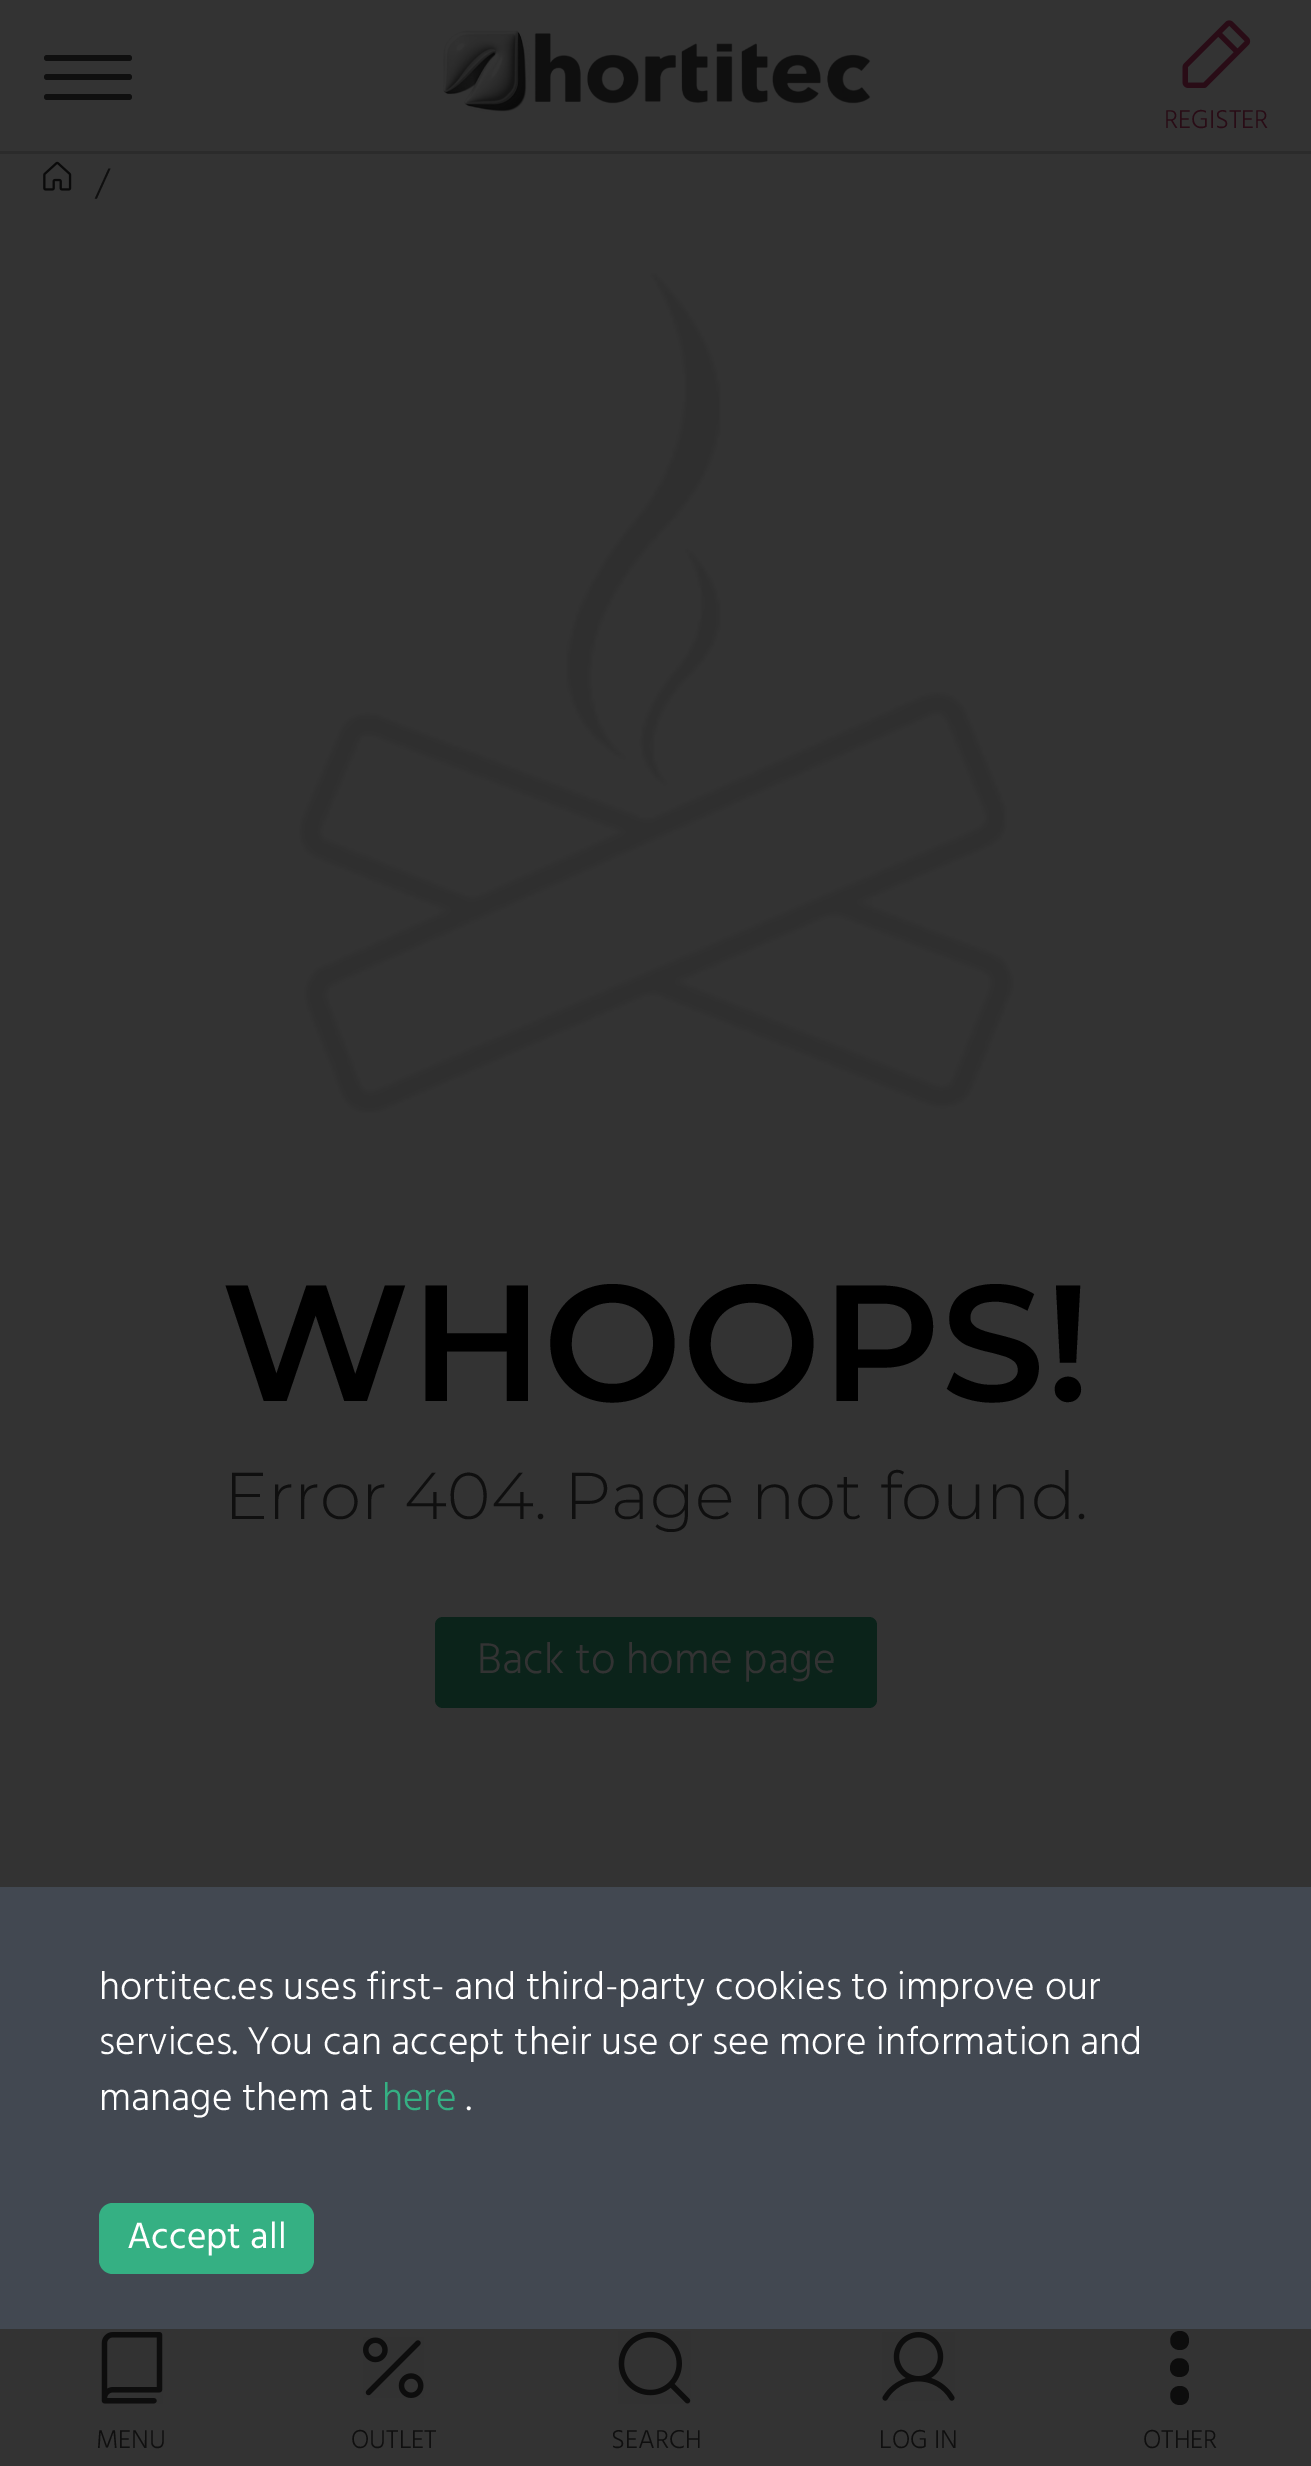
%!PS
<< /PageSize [1311 2466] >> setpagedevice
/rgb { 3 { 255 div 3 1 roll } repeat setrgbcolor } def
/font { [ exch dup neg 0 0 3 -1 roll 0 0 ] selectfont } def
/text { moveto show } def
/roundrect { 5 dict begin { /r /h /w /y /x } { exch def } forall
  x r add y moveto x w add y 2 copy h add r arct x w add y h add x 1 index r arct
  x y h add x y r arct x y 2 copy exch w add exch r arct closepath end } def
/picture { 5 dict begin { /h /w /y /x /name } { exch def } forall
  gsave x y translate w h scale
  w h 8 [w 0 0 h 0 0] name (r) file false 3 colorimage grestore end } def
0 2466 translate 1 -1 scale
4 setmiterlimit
51 51 51 rgb
0 0 1311 2466 rectfill
43 43 43 rgb
0 151 1311 3 rectfill
15 15 15 rgb
44 55 88 6 3 roundrect fill
44 74 88 6 3 roundrect fill
44 94 88 6 3 roundrect fill
(img_01.rgb) 443 30 428 82 picture
(img_02.rgb) 1182 20 69 68 picture
(img_03.rgb) 43 161 29 30 picture
(img_04.rgb) 299 273 715 840 picture
11 35 26 rgb
435 1617 442 91 8 roundrect fill
66 72 81 rgb
0 1887 1311 442 rectfill
53 176 131 rgb
99 2203 215 71 14 roundrect fill
(img_05.rgb) 101 2332 62 72 picture
(img_06.rgb) 363 2337 61 61 picture
(img_07.rgb) 618 2331 73 73 picture
(img_08.rgb) 882 2332 73 69 picture
13 13 13 rgb
1189 2368 moveto 0 12 -19 12 -19 0 rcurveto 0 -13 19 -13 19 0 rcurveto closepath 1180 2350 moveto 12 0 12 -19 0 -19 rcurveto -13 0 -13 19 0 19 rcurveto closepath 1180 2386 moveto -13 0 -13 19 0 19 rcurveto 12 0 12 -19 0 -19 rcurveto closepath fill
/Hind-Light 26.5 font
41 12 22 rgb
(REGISTER) 1164 128 text
/Hind-Light 37.5 font
15 15 15 rgb
(/) 95 195 text
/Montserrat-SemiBold 165 font
0 0 0 rgb
(WHOOPS!) 221 1401 text
/Montserrat-Light 66 font
15 15 15 rgb
(Error 404. Page not found.) 224 1519 text
/Hind-Light 44 font
51 51 51 rgb
(Back to home page) 477 1673 text
/Hind-Light 39.6 font
255 255 255 rgb
(hortitec.es uses first- and third-party cookies to improve our) 99 1999 text
(services. You can accept their use or see more information and) 99 2054 text
(manage them at) 99 2110 text
53 176 131 rgb
(here) 382 2110 text
255 255 255 rgb
(.) 466 2110 text
/Hind-Regular 37.5 font
(Accept all) 127 2248 text
/Hind-Light 26.5 font
15 15 15 rgb
(MENU) 96 2448 text
(OUTLET) 351 2448 text
(SEARCH) 611 2448 text
(LOG IN) 879 2448 text
(OTHER) 1143 2448 text
showpage
